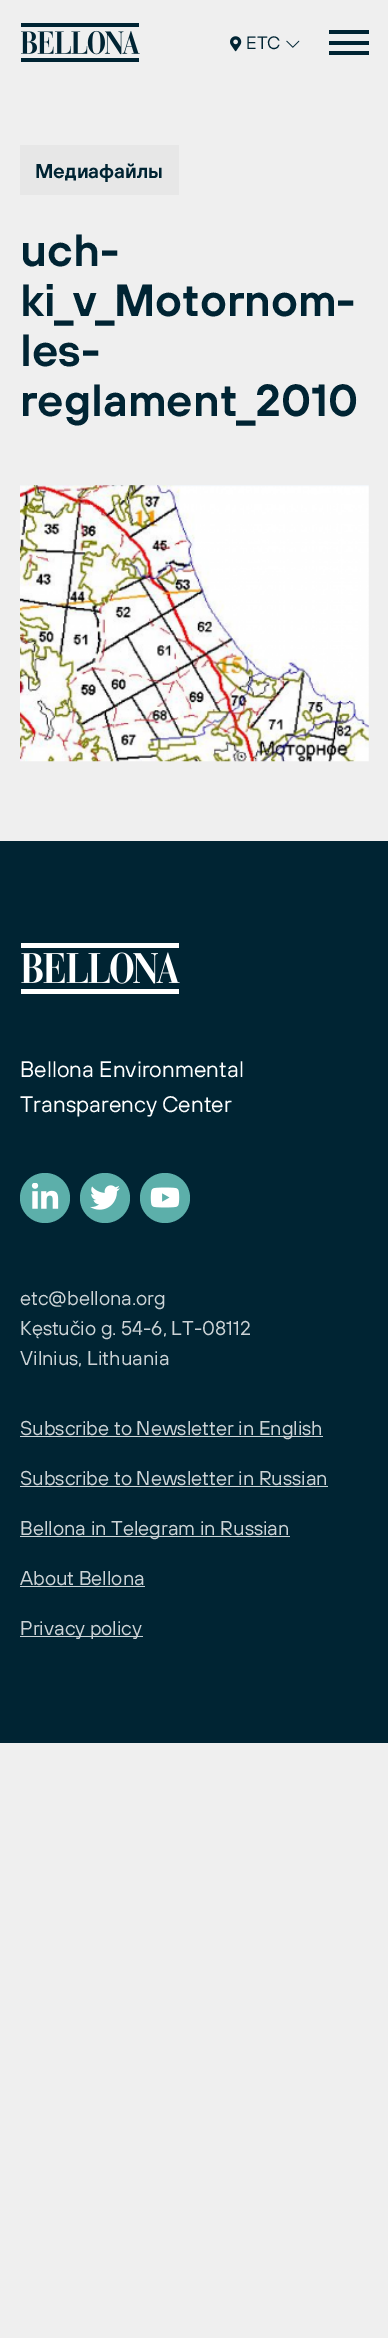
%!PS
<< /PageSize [388 2338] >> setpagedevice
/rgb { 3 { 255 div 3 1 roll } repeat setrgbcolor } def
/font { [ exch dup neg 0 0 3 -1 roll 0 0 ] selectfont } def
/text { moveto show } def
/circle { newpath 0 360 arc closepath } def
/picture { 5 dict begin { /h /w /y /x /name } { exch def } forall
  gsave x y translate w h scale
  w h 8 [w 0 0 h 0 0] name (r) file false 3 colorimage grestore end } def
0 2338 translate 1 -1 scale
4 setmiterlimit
239 239 239 rgb
0 0 388 2338 rectfill
(img_01.rgb) 21 23 119 39 picture
(img_02.rgb) 230 36 12 16 picture
(img_03.rgb) 286 40 14 8 picture
0 36 51 rgb
329 30 40 4 rectfill
329 41 40 4 rectfill
329 51 40 4 rectfill
231 231 231 rgb
20 145 159 50 rectfill
(img_04.rgb) 20 485 349 277 picture
0 36 51 rgb
0 841 388 902 rectfill
(img_05.rgb) 21 943 159 51 picture
92 175 170 rgb
45 1198 25 circle fill
(img_06.rgb) 31 1183 28 26 picture
105 1198 25 circle fill
(img_07.rgb) 90 1185 30 25 picture
165 1198 25 circle fill
(img_08.rgb) 150 1187 30 21 picture
204 211 214 rgb
20 1436 303 1 rectfill
20 1486 308 1 rectfill
20 1536 270 1 rectfill
20 1586 125 1 rectfill
20 1636 123 1 rectfill
/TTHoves-Regular 18 font
0 36 51 rgb
(ETC) 246 49 text
/TTHoves-SemiBold 20 font
(Медиафайлы) 35 178 text
/TTHoves-SemiBold 45 font
(uch-) 20 266 text
(ki_v_Motornom-) 20 316 text
(les-) 20 366 text
(reglament_2010) 20 416 text
/TTHoves-Regular 22.5 font
255 255 255 rgb
(Bellona Environmental) 20 1077 text
(Transparency Center) 20 1112 text
/TTHoves-Regular 20 font
204 211 214 rgb
(etc@bellona.org) 20 1305 text
(Kęstučio g. 54-6, LT-08112) 20 1335 text
(Vilnius, Lithuania) 20 1365 text
(Subscribe to Newsletter in English) 20 1435 text
(Subscribe to Newsletter in Russian) 20 1485 text
(Bellona in Telegram in Russian) 20 1535 text
(About Bellona) 20 1585 text
(Privacy policy) 20 1635 text
showpage
